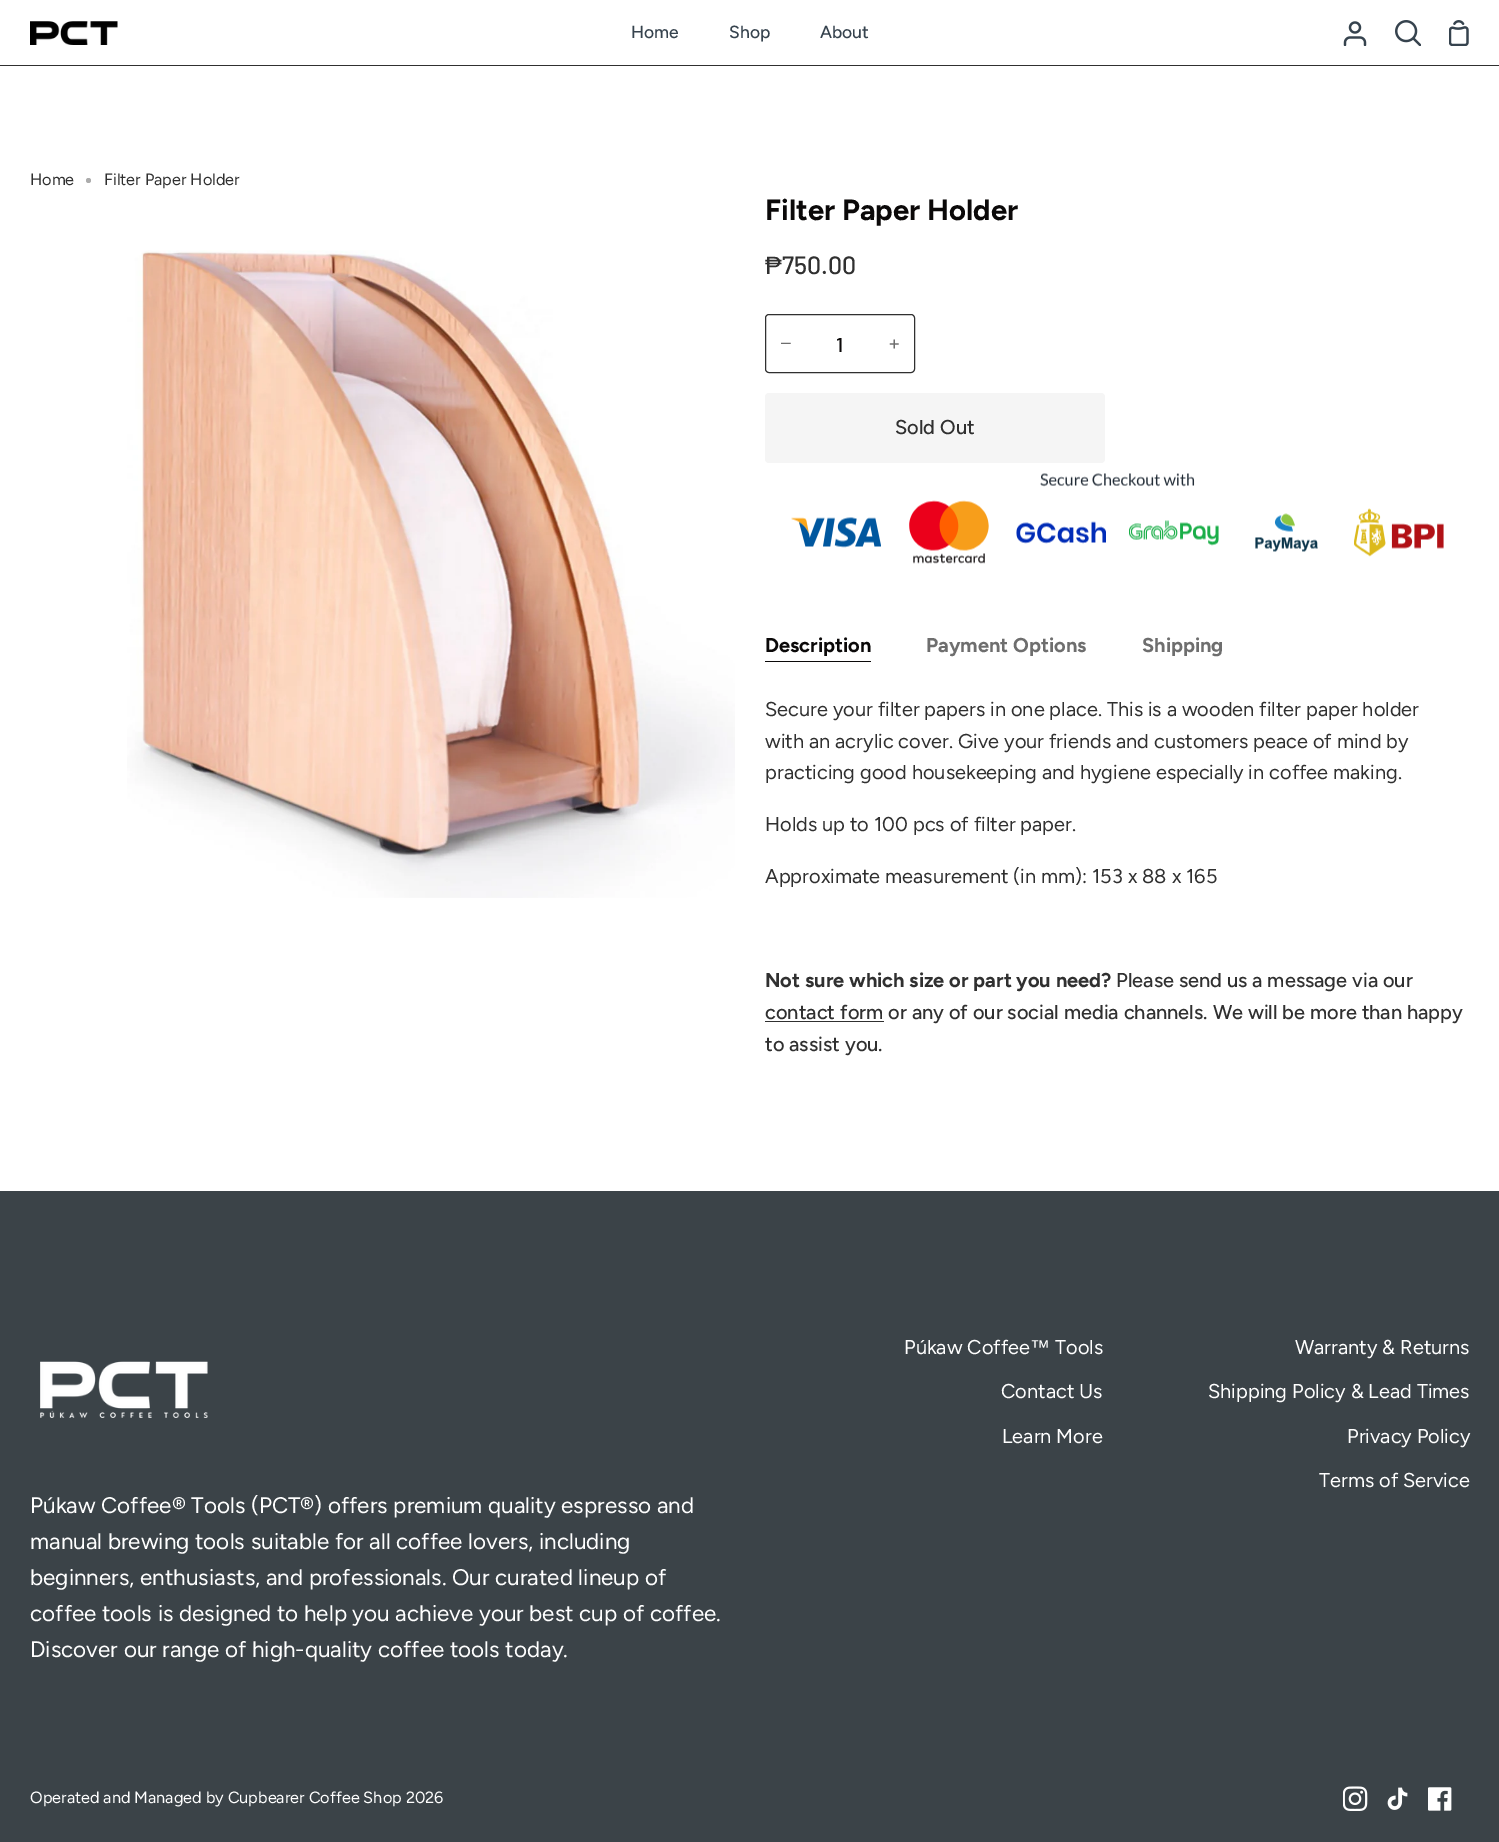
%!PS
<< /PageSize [1499 1842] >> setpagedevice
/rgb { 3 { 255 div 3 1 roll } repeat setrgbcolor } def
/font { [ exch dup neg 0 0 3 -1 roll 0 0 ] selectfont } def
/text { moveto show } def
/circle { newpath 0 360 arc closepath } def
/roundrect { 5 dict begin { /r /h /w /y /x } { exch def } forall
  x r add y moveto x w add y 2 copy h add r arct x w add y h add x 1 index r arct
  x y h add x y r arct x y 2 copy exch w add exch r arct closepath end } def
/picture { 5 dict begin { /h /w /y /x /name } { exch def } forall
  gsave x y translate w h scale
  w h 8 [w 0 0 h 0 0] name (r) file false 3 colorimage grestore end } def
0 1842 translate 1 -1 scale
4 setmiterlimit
255 255 255 rgb
0 0 1499 1842 rectfill
48 48 48 rgb
0 65 1499 1 rectfill
(img_01.rgb) 30 21 88 24 picture
(img_02.rgb) 1343 21 24 25 picture
(img_03.rgb) 1395 20 26 26 picture
(img_04.rgb) 1449 20 20 26 picture
172 172 172 rgb
88.5 180.5 2.5 circle fill
(img_05.rgb) 127 250 608 648 picture
48 48 48 rgb
765.5 314.5 149 58 3.5 roundrect stroke
245 245 245 rgb
765 393 340 70 4 roundrect fill
(img_06.rgb) 791 473 653 91 picture
11 9 9 rgb
765 661 106 1 rectfill
48 48 48 rgb
765 1021 119 1 rectfill
59 67 72 rgb
0 1191 1499 651 rectfill
(img_07.rgb) 40 1361 168 57 picture
(img_08.rgb) 1343 1786 25 25 picture
(img_09.rgb) 1387 1787 21 23 picture
(img_10.rgb) 1428 1787 24 24 picture
/Figtree-Medium 17.5 font
54 67 78 rgb
(Home) 631 38 text
(Shop) 729 38 text
(About) 820 38 text
/Figtree-Regular 16.25 font
48 48 48 rgb
(Home) 30 185 text
(Filter Paper Holder) 104 185 text
/Figtree-Bold 29.25 font
11 9 9 rgb
(Filter Paper Holder) 765 220 text
/LiberationSans-Regular 25 font
48 48 48 rgb
(₱) 765 274 text
/Barlow-Medium 25 font
(750.00) 782 274 text
/LiberationSans-Regular 20 font
110 110 110 rgb
(−) 780 350 text
/Barlow-Medium 20 font
11 9 9 rgb
(1) 836 352 text
/Figtree-Regular 20 font
110 110 110 rgb
(+) 888 350 text
/Figtree-Medium 20 font
48 48 48 rgb
(Sold Out) 895 434 text
/Figtree-Bold 20 font
11 9 9 rgb
(Description) 765 652 text
110 110 110 rgb
(Payment Options) 926 652 text
(Shipping) 1142 652 text
/Figtree-Regular 20 font
48 48 48 rgb
(Secure your filter papers in one place. This is a wooden filter paper holder) 765 716 text
(with an acrylic cover. Give your friends and customers peace of mind by) 765 748 text
(practicing good housekeeping and hygiene especially in coffee making.) 765 779 text
(Holds up to 100 pcs of filter paper.) 765 831 text
(Approximate measurement \(in mm\): 153 x 88 x 165) 765 883 text
/Figtree-Bold 20 font
(Not sure which size or part you need?) 765 987 text
/Figtree-Medium 20 font
(Please send us a message via our) 1116 987 text
(contact form or any of our social media channels. We will be more than happy) 765 1019 text
(to assist you.) 765 1051 text
/Figtree-Regular 20 font
255 255 255 rgb
(Púkaw Coffee) 904 1354 text
/LiberationSans-Regular 20 font
(™) 1030 1354 text
/Figtree-Regular 20 font
(Tools) 1055 1354 text
(Contact Us) 1001 1398 text
(Learn More) 1002 1443 text
(Warranty & Returns) 1295 1354 text
(Shipping Policy & Lead Times) 1208 1398 text
(Privacy Policy) 1347 1443 text
(Terms of Service) 1319 1487 text
/Figtree-Regular 22.5 font
(Púkaw Coffee® Tools \(PCT®\) offers premium quality espresso and) 30 1513 text
(manual brewing tools suitable for all coffee lovers, including) 30 1549 text
(beginners, enthusiasts, and professionals. Our curated lineup of) 30 1585 text
(coffee tools is designed to help you achieve your best cup of coffee.) 30 1621 text
(Discover our range of high-quality coffee tools today.) 30 1657 text
/Figtree-Regular 16.25 font
(Operated and Managed by Cupbearer Coffee Shop 2026) 30 1803 text
showpage
